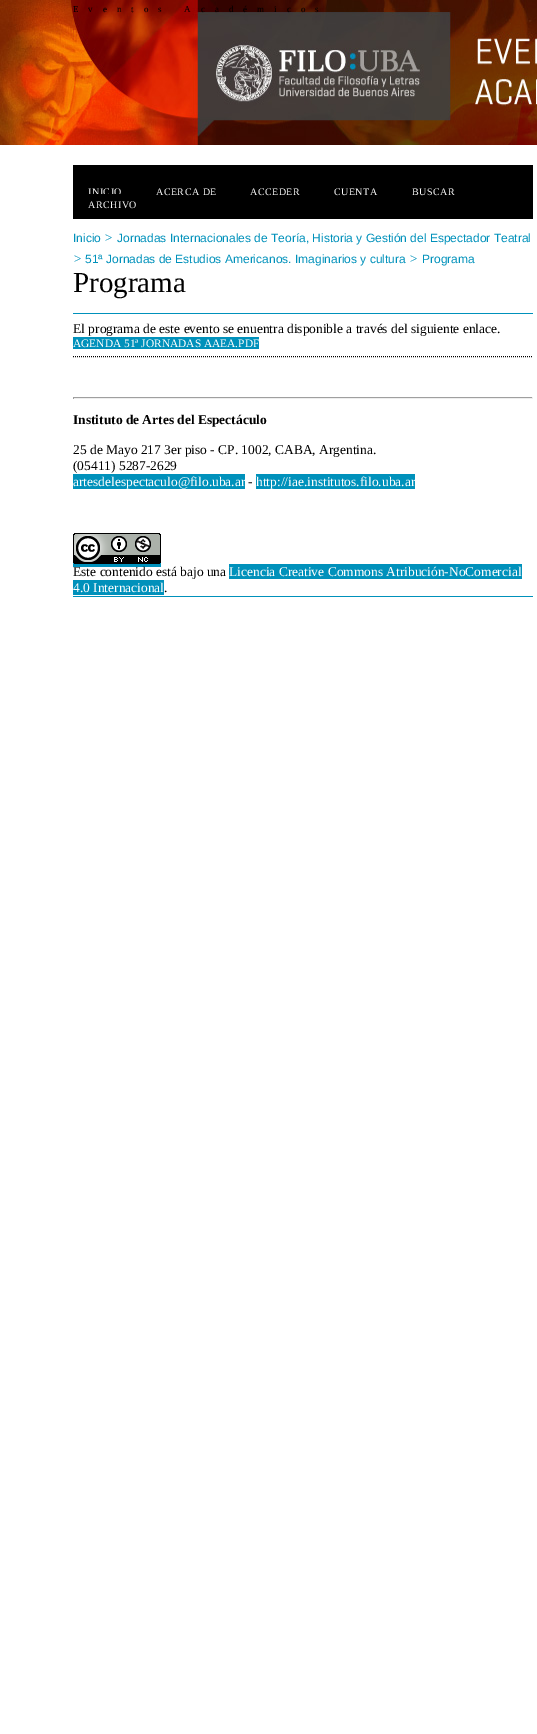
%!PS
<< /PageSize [537 1734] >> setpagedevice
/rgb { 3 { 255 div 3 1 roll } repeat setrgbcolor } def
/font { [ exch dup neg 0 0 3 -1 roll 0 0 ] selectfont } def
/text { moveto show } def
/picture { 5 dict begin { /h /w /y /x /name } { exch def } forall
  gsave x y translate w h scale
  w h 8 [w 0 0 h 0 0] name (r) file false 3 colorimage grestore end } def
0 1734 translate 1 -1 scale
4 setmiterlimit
255 255 255 rgb
0 0 537 1734 rectfill
(img_01.rgb) 0 0 537 145 picture
0 0 0 rgb
73 165 460 54 rectfill
0 145 187 rgb
73 313 460 1 rectfill
73 596 460 1 rectfill
73 337 186 12 rectfill
0 0 0 rgb
[1 1] 0 setdash
73 356.5 moveto 460 0 rlineto stroke
159 159 159 rgb
73 397 460 1 rectfill
238 238 238 rgb
532 397 1 2 rectfill
73 398 460 1 rectfill
159 159 159 rgb
73 397 1 2 rectfill
0 145 187 rgb
73 474 172 15 rectfill
256 474 159 15 rectfill
73 563 88 4 rectfill
(img_02.rgb) 73 533 88 31 picture
229 564 293 15 rectfill
73 580 91 15 rectfill
/LiberationSerif-Regular 9 font
0 0 0 rgb
73 12 moveto 10 0 (Eventos Académicos) ashow
/LiberationSerif-Regular 10 font
255 255 255 rgb
88 195 moveto 0.5 0 (INICIO) ashow
156 195 moveto 0.5 0 (ACERCA DE) ashow
250 195 moveto 0.5 0 (ACCEDER) ashow
334 195 moveto 0.5 0 (CUENTA) ashow
412 195 moveto 0.5 0 (BUSCAR) ashow
88 208 moveto 0.5 0 (ARCHIVO) ashow
0 0 0 rgb
88 194 33 2 rectfill
/LiberationSans-Regular 12 font
0 145 187 rgb
(Inicio) 73 242 text
/LiberationSerif-Italic 13.45 font
(>) 104 242 text
/LiberationSans-Regular 12 font
(Jornadas Internacionales de Teoría, Historia y Gestión del Espectador Teatral) 117 242 text
/LiberationSerif-Italic 13.45 font
(>) 73 263 text
/LiberationSans-Regular 12 font
(51ª Jornadas de Estudios Americanos. Imaginarios y cultura) 85 263 text
/LiberationSerif-Italic 13.45 font
(>) 409 263 text
/LiberationSans-Regular 12 font
(Programa) 422 263 text
/LiberationSerif-Regular 29 font
0 0 0 rgb
(Programa) 73 292 text
/LiberationSerif-Regular 13.45 font
(El programa de este evento se enuentra disponible a través del siguiente enlace.) 73 333 text
/LiberationSerif-Regular 11.4 font
255 255 255 rgb
(AGENDA 51ª JORNADAS AAEA.PDF) 73 347 text
/LiberationSerif-Bold 13.45 font
0 0 0 rgb
(Instituto de Artes del Espectáculo) 73 424 text
/LiberationSerif-Regular 13.45 font
(25 de Mayo 217 3er piso - CP. 1002, CABA, Argentina.) 73 454 text
(\(05411\) 5287-2629) 73 470 text
255 255 255 rgb
(artesdelespectaculo@filo.uba.ar) 73 486 text
0 0 0 rgb
(-) 248 486 text
255 255 255 rgb
(http://iae.institutos.filo.uba.ar) 256 486 text
0 0 0 rgb
(Este contenido está bajo una) 73 576 text
255 255 255 rgb
(Licencia Creative Commons Atribución-NoComercial) 229 576 text
(4.0 Internacional) 73 592 text
0 0 0 rgb
(.) 164 592 text
showpage
